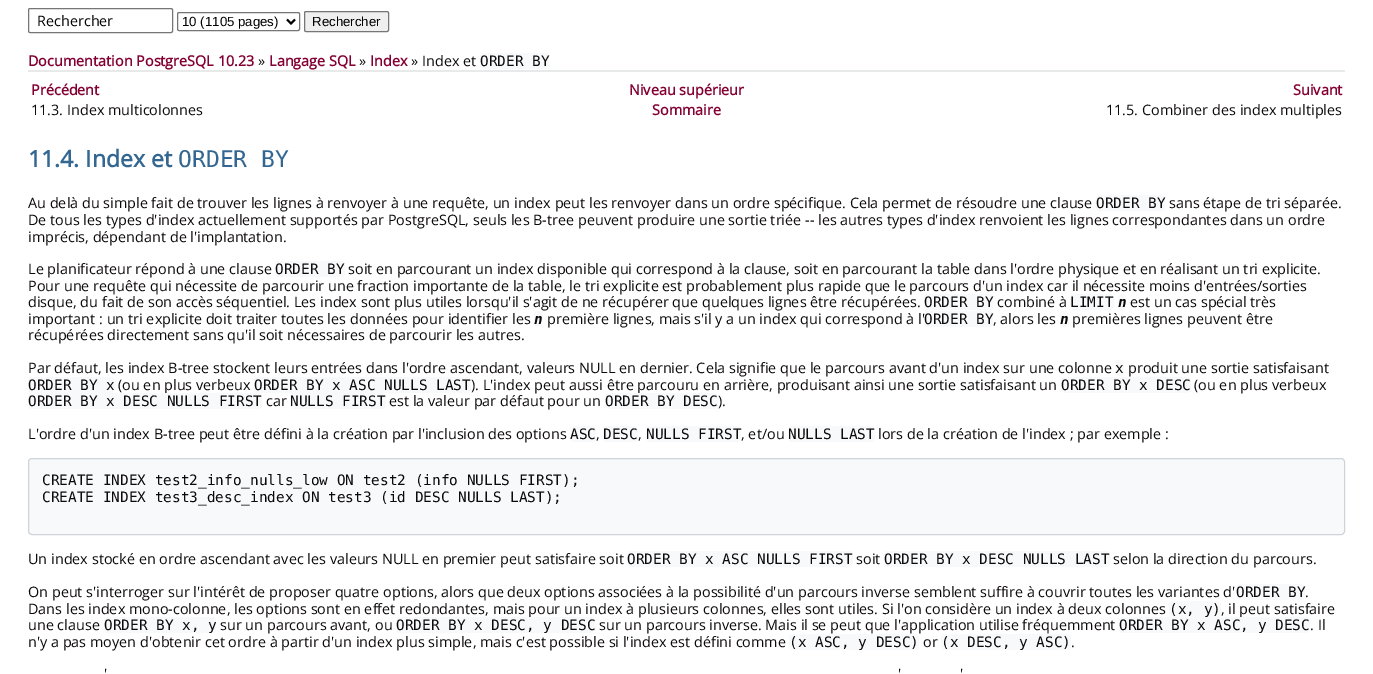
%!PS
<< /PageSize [1373 674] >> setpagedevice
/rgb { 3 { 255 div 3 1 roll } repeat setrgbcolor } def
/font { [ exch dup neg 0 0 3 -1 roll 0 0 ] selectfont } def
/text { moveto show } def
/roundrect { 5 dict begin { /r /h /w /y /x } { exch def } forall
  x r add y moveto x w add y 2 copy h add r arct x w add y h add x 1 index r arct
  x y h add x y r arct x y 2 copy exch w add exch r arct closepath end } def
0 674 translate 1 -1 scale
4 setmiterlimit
255 255 255 rgb
0 0 1373 674 rectfill
118 118 118 rgb
28.5 8.5 144 24 1.5 roundrect stroke
177.5 12.5 122 18 1.5 roundrect stroke
0 0 0 rgb
2 setlinewidth
287 19.5 moveto 4 4 rlineto 4 -4 rlineto stroke
239 239 239 rgb
304.5 11.5 84 20 1.5 roundrect gsave fill grestore
118 118 118 rgb
1 setlinewidth
stroke
248 249 250 rgb
480 53 69 16 4 roundrect fill
231 234 232 rgb
28 70 1317 2 rectfill
248 249 250 rgb
1096 195 69 16 4 roundrect fill
275 261 70 16 4 roundrect fill
534 311 9 16 4 roundrect fill
924 311 69 16 4 roundrect fill
1060 311 9 16 4 roundrect fill
1115 360 9 16 4 roundrect fill
28 377 87 16 4 roundrect fill
254 377 217 16 4 roundrect fill
1061 377 130 16 4 roundrect fill
290 393 96 16 4 roundrect fill
570 426 26 16 4 roundrect fill
603 426 35 16 4 roundrect fill
646 426 95 16 4 roundrect fill
788 426 87 16 4 roundrect fill
28.5 458.5 1316 76 3.5 roundrect gsave fill grestore
206 212 218 rgb
stroke
248 249 250 rgb
627 551 226 16 4 roundrect fill
884 551 226 16 4 roundrect fill
1236 584 69 16 4 roundrect fill
1169 601 52 16 4 roundrect fill
789 634 130 16 4 roundrect fill
941 634 130 16 4 roundrect fill
/OpenSans-Regular 14.4 font
0 0 0 rgb
(Rechercher) 37 26 text
/LiberationSans-Regular 13.25 font
(10 \(1105 pages\)) 182 26 text
(Rechercher) 312 26 text
/OpenSans-Bold 14.4 font
132 0 50 rgb
(Documentation PostgreSQL 10.23) 28 66 text
/OpenSans-Regular 14.4 font
13 10 11 rgb
(») 258 66 text
/OpenSans-Bold 14.4 font
132 0 50 rgb
(Langage SQL) 269 66 text
/OpenSans-Regular 14.4 font
13 10 11 rgb
(») 359 66 text
/OpenSans-Bold 14.4 font
132 0 50 rgb
(Index) 370 66 text
/OpenSans-Regular 14.4 font
13 10 11 rgb
(» Index et) 411 66 text
/DejaVuSansMono-Regular 14.4 font
(ORDER BY) 480 66 text
/OpenSans-Bold 14.4 font
132 0 50 rgb
(Précédent) 31 95 text
(Niveau supérieur) 629 95 text
(Suivant) 1293 95 text
/OpenSans-Regular 14.4 font
13 10 11 rgb
(11.3. Index multicolonnes) 31 115 text
/OpenSans-Bold 14.4 font
132 0 50 rgb
(Sommaire) 652 115 text
/OpenSans-Regular 14.4 font
13 10 11 rgb
(11.5. Combiner des index multiples) 1106 115 text
/OpenSans-Bold 23 font
51 103 145 rgb
(11.4. Index et) 28 167 text
/DejaVuSansMono-Regular 23 font
(ORDER BY) 178 167 text
/OpenSans-Regular 14.4 font
13 10 11 rgb
(Au delà du simple fait de trouver les lignes à renvoyer à une requête, un index peut les renvoyer dans un ordre spécifique. Cela permet de résoudre une) 28 208 text
(clause) 1050 208 text
/DejaVuSansMono-Regular 14.4 font
(ORDER BY) 1096 208 text
/OpenSans-Regular 14.4 font
(sans étape de tri séparée.) 1169 208 text
(De tous les types d'index actuellement supportés par PostgreSQL, seuls les B-tree peuvent produire une sortie triée -- les autres types d'index renvoient les lignes correspondantes dans un ordre) 28 225 text
(imprécis, dépendant de l'implantation.) 28 242 text
(Le planificateur répond à une clause) 28 274 text
/DejaVuSansMono-Regular 14.4 font
(ORDER BY) 275 274 text
/OpenSans-Regular 14.4 font
(soit en parcourant un index disponible qui correspond à la clause, soit en parcourant la table dans l'ordre physique et en réalisant) 348 274 text
(un tri explicite.) 1222 274 text
(Pour une requête qui nécessite de parcourir une fraction importante de la table, le tri explicite est probablement plus rapide que) 28 291 text
(le parcours d'un index car il nécessite moins d'entrées/sorties) 894 291 text
(disque, du fait de son accès séquentiel. Les index sont plus utiles lorsqu'il s'agit) 28 307 text
(de ne récupérer que quelques lignes être récupérées.) 561 307 text
248 249 250 rgb
924 294 69 16 4 roundrect fill
/DejaVuSansMono-Regular 14.4 font
13 10 11 rgb
(ORDER BY) 924 307 text
/OpenSans-Regular 14.4 font
(combiné à) 997 307 text
248 249 250 rgb
1070 294 44 16 4 roundrect fill
/DejaVuSansMono-Regular 14.4 font
13 10 11 rgb
(LIMIT) 1070 307 text
248 249 250 rgb
1118 294 8 16 4 roundrect fill
/DejaVuSansMono-BoldItalic 14.4 font
13 10 11 rgb
(n) 1118 307 text
/OpenSans-Regular 14.4 font
(est un cas spécial très) 1130 307 text
(important : un tri explicite doit traiter toutes les données pour identifier les) 28 324 text
/DejaVuSansMono-BoldItalic 14.4 font
(n) 534 324 text
/OpenSans-Regular 14.4 font
(première lignes, mais s'il y a un index qui correspond à l') 547 324 text
/DejaVuSansMono-Regular 14.4 font
(ORDER BY) 924 324 text
/OpenSans-Regular 14.4 font
(, alors les) 993 324 text
/DejaVuSansMono-BoldItalic 14.4 font
(n) 1060 324 text
/OpenSans-Regular 14.4 font
(premières lignes peuvent être) 1072 324 text
(récupérées directement sans qu'il soit nécessaires de parcourir les autres.) 28 340 text
(Par défaut, les index B-tree stockent leurs entrées dans l'ordre ascendant, valeurs NULL en dernier. Cela signifie que le parcours avant d'un index sur une colonne) 28 373 text
/DejaVuSansMono-Regular 14.4 font
(x) 1115 373 text
/OpenSans-Regular 14.4 font
(produit une sortie satisfaisant) 1128 373 text
/DejaVuSansMono-Regular 14.4 font
(ORDER BY x) 28 390 text
/OpenSans-Regular 14.4 font
(\(ou en plus verbeux) 118 390 text
/DejaVuSansMono-Regular 14.4 font
(ORDER BY x ASC NULLS LAST) 254 390 text
/OpenSans-Regular 14.4 font
(\). L'index peut aussi être parcouru en arrière, produisant ainsi une sortie satisfaisant un) 471 390 text
/DejaVuSansMono-Regular 14.4 font
(ORDER BY x DESC) 1061 390 text
/OpenSans-Regular 14.4 font
(\(ou en plus verbeux) 1194 390 text
248 249 250 rgb
28 393 234 16 4 roundrect fill
/DejaVuSansMono-Regular 14.4 font
13 10 11 rgb
(ORDER BY x DESC NULLS FIRST) 28 406 text
/OpenSans-Regular 14.4 font
(car) 266 406 text
/DejaVuSansMono-Regular 14.4 font
(NULLS FIRST) 290 406 text
/OpenSans-Regular 14.4 font
(est la valeur par défaut pour un) 389 406 text
248 249 250 rgb
605 393 113 16 4 roundrect fill
/DejaVuSansMono-Regular 14.4 font
13 10 11 rgb
(ORDER BY DESC) 605 406 text
/OpenSans-Regular 14.4 font
(\).) 718 406 text
(L'ordre d'un index B-tree peut être défini à la création par l'inclusion des options) 28 439 text
/DejaVuSansMono-Regular 14.4 font
(ASC) 570 439 text
/OpenSans-Regular 14.4 font
(,) 596 439 text
/DejaVuSansMono-Regular 14.4 font
(DESC) 603 439 text
/OpenSans-Regular 14.4 font
(,) 638 439 text
/DejaVuSansMono-Regular 14.4 font
(NULLS FIRST) 646 439 text
/OpenSans-Regular 14.4 font
(, et/ou) 741 439 text
/DejaVuSansMono-Regular 14.4 font
(NULLS LAST) 788 439 text
/OpenSans-Regular 14.4 font
(lors de la création de l'index ; par exemple :) 878 439 text
/DejaVuSansMono-Regular 14.4 font
(CREATE INDEX test2_info_nulls_low ON test2 \(info NULLS FIRST\);) 42 485 text
(CREATE INDEX test3_desc_index ON test3 \(id DESC NULLS LAST\);) 42 502 text
/OpenSans-Regular 14.4 font
(Un index stocké en ordre ascendant avec les valeurs NULL en premier peut satisfaire soit) 28 564 text
/DejaVuSansMono-Regular 14.4 font
(ORDER BY x ASC NULLS FIRST) 627 564 text
/OpenSans-Regular 14.4 font
(soit) 856 564 text
/DejaVuSansMono-Regular 14.4 font
(ORDER BY x DESC NULLS LAST) 884 564 text
/OpenSans-Regular 14.4 font
(selon la direction du parcours.) 1113 564 text
(On peut s'interroger sur l'intérêt de proposer quatre options, alors que) 28 597 text
(deux options associées à la possibilité d'un parcours inverse semblent) 507 597 text
(suffire à couvrir toutes les variantes d') 980 597 text
/DejaVuSansMono-Regular 14.4 font
(ORDER BY) 1236 597 text
/OpenSans-Regular 14.4 font
(.) 1305 597 text
(Dans les index mono-colonne, les options sont en effet redondantes, mais pour un index à plusieurs colonnes, elles sont utiles. Si l'on considère un index à deux colonnes) 28 614 text
/DejaVuSansMono-Regular 14.4 font
(\(x, y\)) 1169 614 text
/OpenSans-Regular 14.4 font
(, il peut satisfaire) 1221 614 text
(une clause) 28 630 text
248 249 250 rgb
104 617 112 16 4 roundrect fill
/DejaVuSansMono-Regular 14.4 font
13 10 11 rgb
(ORDER BY x, y) 104 630 text
/OpenSans-Regular 14.4 font
(sur un parcours avant, ou) 220 630 text
248 249 250 rgb
396 617 199 16 4 roundrect fill
/DejaVuSansMono-Regular 14.4 font
13 10 11 rgb
(ORDER BY x DESC, y DESC) 396 630 text
/OpenSans-Regular 14.4 font
(sur un parcours inverse. Mais il se peut que l'application utilise fréquemment) 599 630 text
248 249 250 rgb
1119 617 191 16 4 roundrect fill
/DejaVuSansMono-Regular 14.4 font
13 10 11 rgb
(ORDER BY x ASC, y DESC) 1119 630 text
/OpenSans-Regular 14.4 font
(. Il) 1310 630 text
(n'y a pas moyen d'obtenir cet ordre à partir d'un index plus simple, mais c'est possible si l'index est défini comme) 28 647 text
/DejaVuSansMono-Regular 14.4 font
(\(x ASC, y DESC\)) 789 647 text
/OpenSans-Regular 14.4 font
(or) 923 647 text
/DejaVuSansMono-Regular 14.4 font
(\(x DESC, y ASC\)) 941 647 text
/OpenSans-Regular 14.4 font
(.) 1071 647 text
(') 104 679 text
(') 898 679 text
(') 960 679 text
showpage
